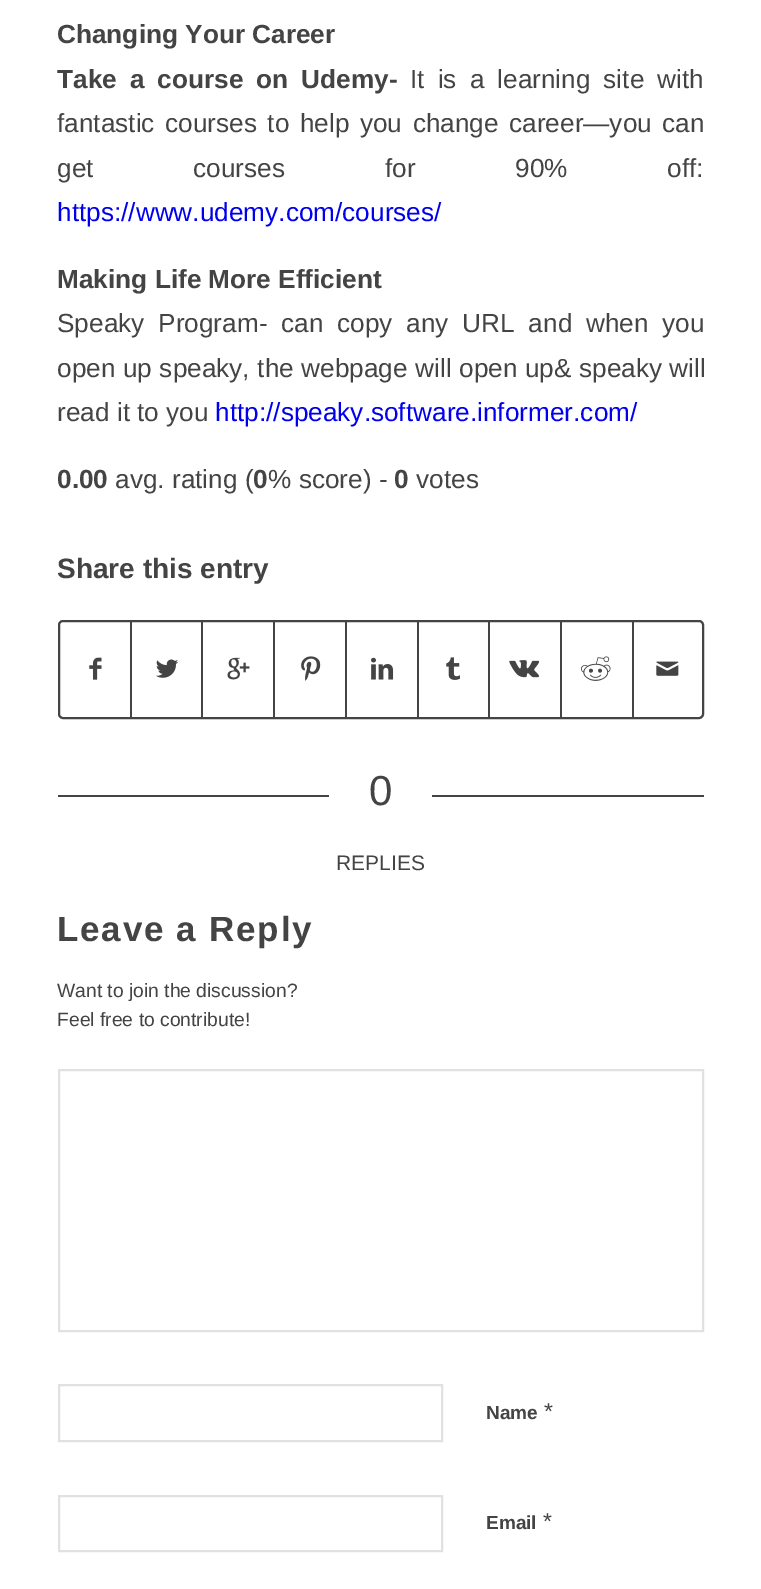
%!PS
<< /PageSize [761 1589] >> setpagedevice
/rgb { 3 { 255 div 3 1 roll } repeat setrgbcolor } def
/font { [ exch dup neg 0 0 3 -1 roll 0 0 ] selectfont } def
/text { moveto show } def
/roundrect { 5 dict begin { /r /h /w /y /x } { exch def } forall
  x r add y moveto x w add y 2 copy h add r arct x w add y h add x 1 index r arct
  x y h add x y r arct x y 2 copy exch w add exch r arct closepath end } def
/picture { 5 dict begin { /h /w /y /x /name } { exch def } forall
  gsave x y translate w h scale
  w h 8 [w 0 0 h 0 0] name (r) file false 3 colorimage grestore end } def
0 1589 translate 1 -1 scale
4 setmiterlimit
255 255 255 rgb
0 0 761 1589 rectfill
68 68 68 rgb
2 setlinewidth
59 621 644 97 4 roundrect stroke
(img_01.rgb) 89 657 13 23 picture
130 621 2 97 rectfill
(img_02.rgb) 156 659 23 19 picture
201 621 2 97 rectfill
(img_03.rgb) 227 657 23 23 picture
273 621 2 97 rectfill
(img_04.rgb) 301 656 20 25 picture
345 621 2 97 rectfill
(img_05.rgb) 371 657 23 23 picture
417 621 2 97 rectfill
(img_06.rgb) 446 657 14 23 picture
488 621 2 97 rectfill
(img_07.rgb) 509 660 31 18 picture
560 621 2 97 rectfill
(img_08.rgb) 581 656 30 25 picture
632 621 2 97 rectfill
(img_09.rgb) 656 661 23 15 picture
58 795 271 2 rectfill
432 795 272 2 rectfill
225 225 225 rgb
59 1070 644 261 rectstroke
59 1385 383 56 rectstroke
59 1496 383 55 rectstroke
/LiberationSans-Bold 26.2 font
68 68 68 rgb
(Changing Your Career) 57 43 text
57 88 moveto 5.75 0 32 (Take a course on Udemy-) widthshow
/LiberationSans-Regular 26.2 font
410 88 moveto 5.75 0 32 (It is a learning site with) widthshow
57 132 moveto 3.25 0 32 (fantastic courses to help you change career—you can) widthshow
57 177 moveto 92.5 0 32 (get courses for 90% off:) widthshow
0 0 238 rgb
(https://www.udemy.com/courses/) 57 221 text
/LiberationSans-Bold 26.2 font
68 68 68 rgb
(Making Life More Efficient) 57 288 text
/LiberationSans-Regular 26.2 font
57 332 moveto 6.5 0 32 (Speaky Program- can copy any URL and when you) widthshow
57 377 moveto 0.25 0 32 (open up speaky, the webpage will open up& speaky will) widthshow
(read it to you) 57 421 text
0 0 238 rgb
(http://speaky.software.informer.com/) 215 421 text
/LiberationSans-Bold 26.2 font
68 68 68 rgb
(0.00) 57 488 text
/LiberationSans-Regular 26.2 font
(avg. rating \() 115 488 text
/LiberationSans-Bold 26.2 font
(0) 253 488 text
/LiberationSans-Regular 26.2 font
(% score\) -) 268 488 text
/LiberationSans-Bold 26.2 font
(0) 394 488 text
/LiberationSans-Regular 26.2 font
(votes) 416 488 text
/LiberationSans-Bold 28 font
(Share this entry) 57 578 text
/LiberationSans-Regular 42 font
(0) 369 805 text
/LiberationSans-Regular 21 font
(REPLIES) 336 870 text
/LiberationSans-Bold 35 font
57 941 moveto 1.75 0 (Leave a Reply) ashow
/LiberationSans-Regular 19.3 font
(Want to join the discussion?) 57 997 text
(Feel free to contribute!) 57 1026 text
/LiberationSans-Bold 19 font
(Name) 486 1419 text
/LiberationSans-Regular 23 font
(*) 544 1419 text
/LiberationSans-Bold 19 font
(Email) 486 1529 text
/LiberationSans-Regular 23 font
(*) 543 1529 text
showpage
